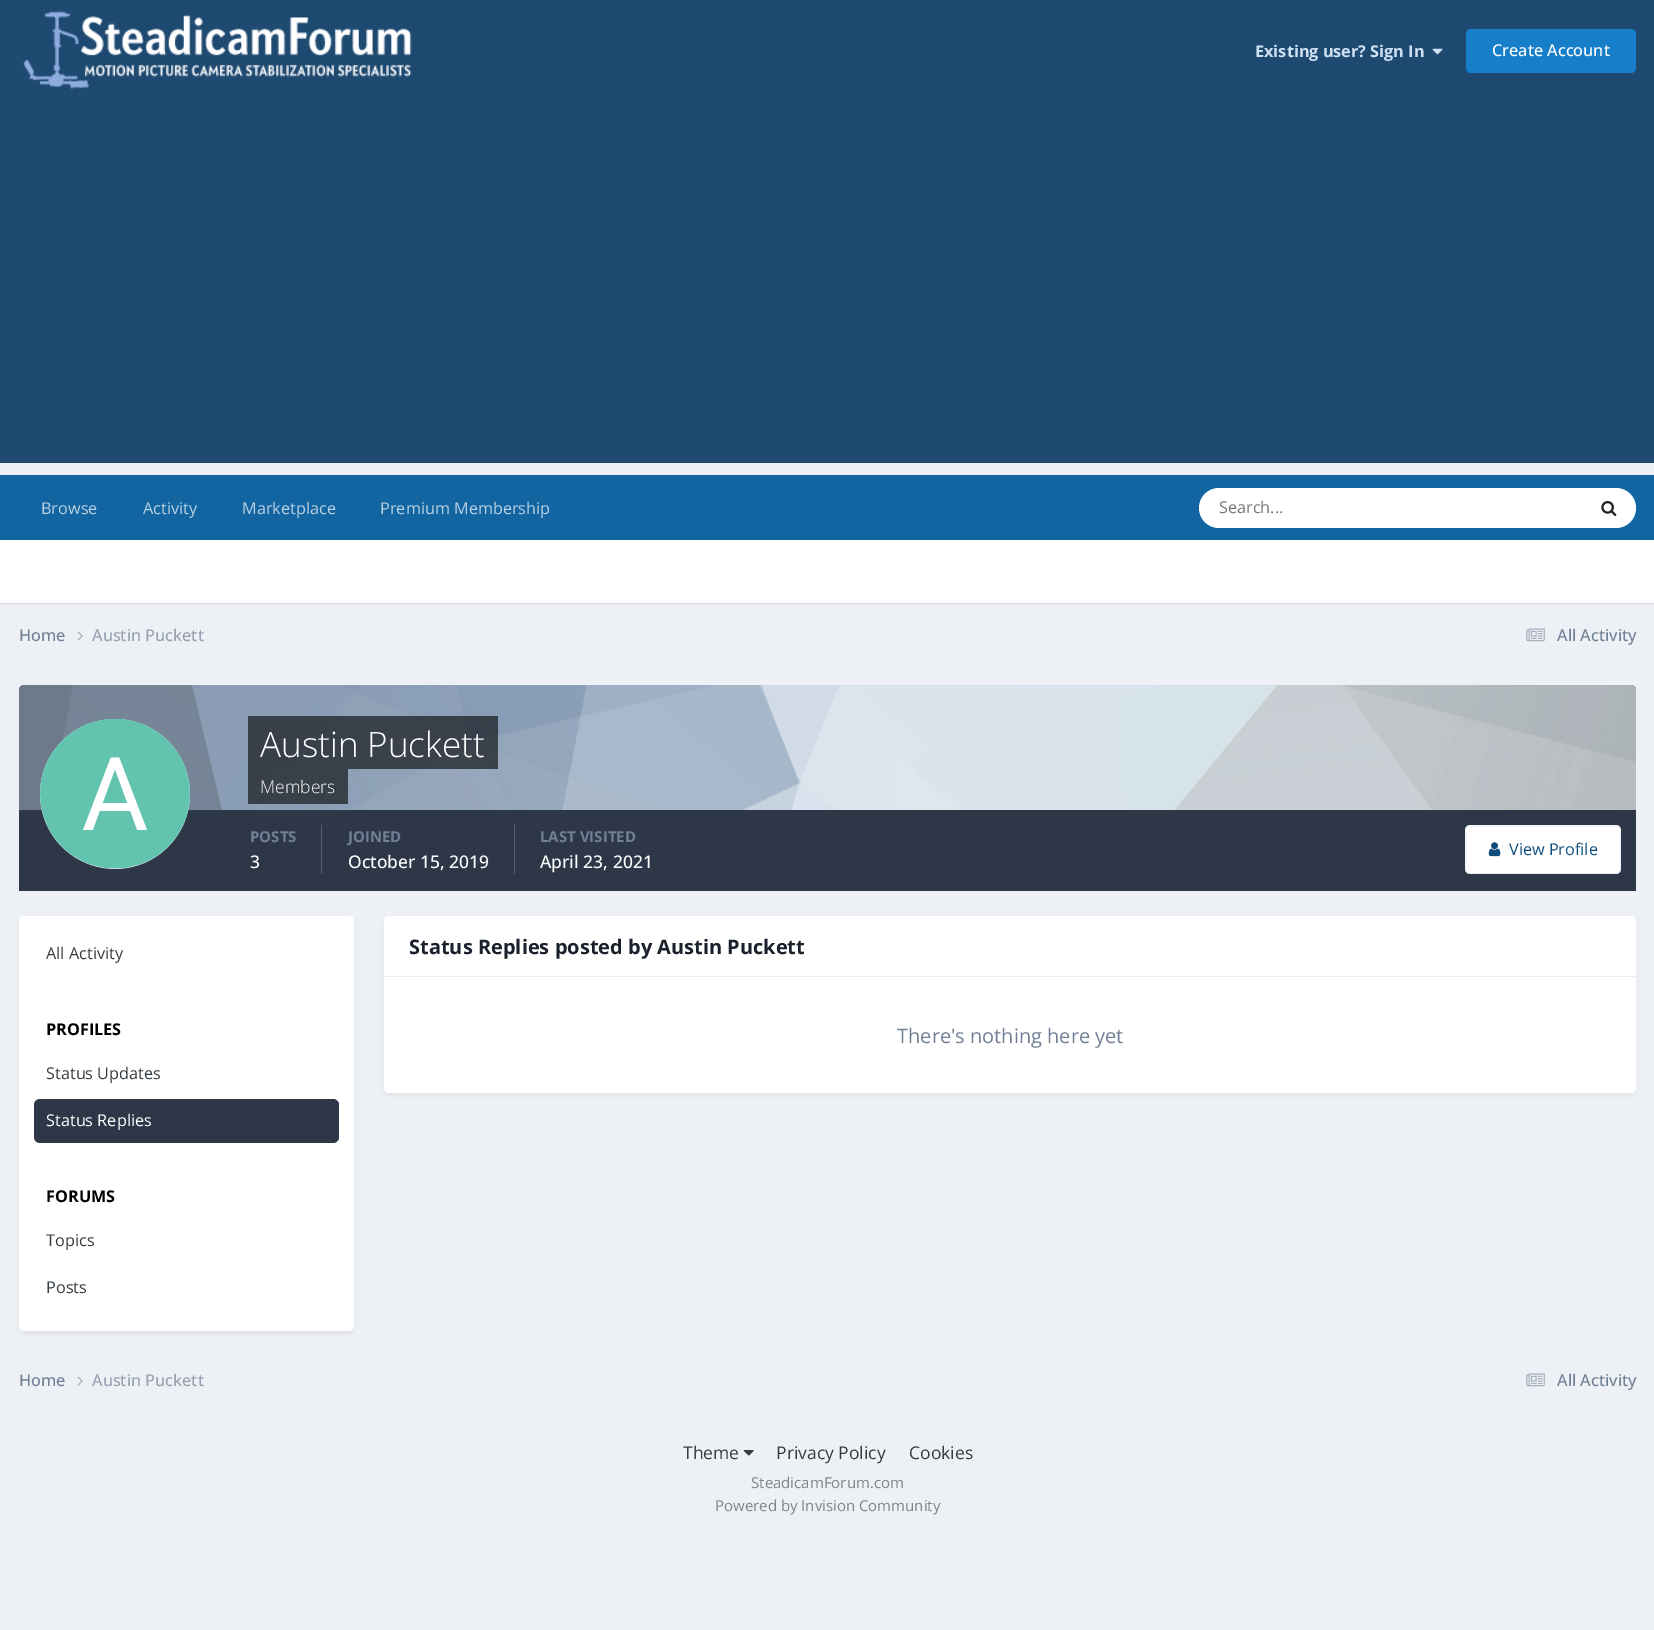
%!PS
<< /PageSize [1654 1630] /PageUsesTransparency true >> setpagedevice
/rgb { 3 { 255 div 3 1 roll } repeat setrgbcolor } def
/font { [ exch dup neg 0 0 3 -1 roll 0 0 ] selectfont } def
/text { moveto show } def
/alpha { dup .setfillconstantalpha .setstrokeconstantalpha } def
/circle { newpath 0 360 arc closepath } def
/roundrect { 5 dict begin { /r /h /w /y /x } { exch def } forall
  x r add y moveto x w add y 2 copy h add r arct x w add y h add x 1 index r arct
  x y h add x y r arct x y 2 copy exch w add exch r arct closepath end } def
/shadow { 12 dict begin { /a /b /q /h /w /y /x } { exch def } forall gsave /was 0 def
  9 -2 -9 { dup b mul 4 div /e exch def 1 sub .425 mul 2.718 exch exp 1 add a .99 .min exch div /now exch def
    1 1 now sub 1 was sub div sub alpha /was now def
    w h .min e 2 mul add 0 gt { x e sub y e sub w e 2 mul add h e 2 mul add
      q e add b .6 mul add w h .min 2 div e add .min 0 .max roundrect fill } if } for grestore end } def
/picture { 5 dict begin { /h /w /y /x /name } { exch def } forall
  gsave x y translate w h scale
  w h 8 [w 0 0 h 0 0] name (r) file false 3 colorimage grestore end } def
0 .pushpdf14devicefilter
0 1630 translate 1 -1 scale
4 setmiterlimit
237 240 244 rgb
0 0 1654 1630 rectfill
30 73 112 rgb
0 0 1654 463 rectfill
(img_01.rgb) 23 11 389 78 picture
(img_02.rgb) 1432 48 11 7 picture
23 126 201 rgb
1466 29 170 44 5 roundrect fill
18 101 161 rgb
0 475 1654 65 rectfill
255 255 255 rgb
1199 488 437 40 20 roundrect fill
(img_03.rgb) 1601 501 16 16 picture
0 0 0 rgb
0 541 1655 63 0 1 0.1 shadow
255 255 255 rgb
0 540 1654 63 rectfill
(img_04.rgb) 77 631 6 10 picture
(img_05.rgb) 1526 628 19 14 picture
153 204 255 rgb
24 685 moveto 1607 0 rlineto 3 0 5 2 5 5 rcurveto 0 120 rlineto -1617 0 rlineto 0 -120 rlineto 0 -3 2 -5 5 -5 rcurveto closepath fill
(img_06.rgb) 18 685 1618 125 picture
45 55 72 rgb
19 810 1617 81 rectfill
255 255 255 rgb
115 794 75 circle fill
(img_07.rgb) 40 719 150 150 picture
0.6 alpha
0 0 0 rgb
248 716 250 53 rectfill
248 769 100 35 rectfill
1 alpha
87 95 109 rgb
321 825 1 49 rectfill
514 825 1 49 rectfill
255 255 255 rgb
1465 825 156 49 5 roundrect fill
0.07 alpha
14 76 121 rgb
1465.5 825.5 155 48 4.5 roundrect stroke
1 alpha
(img_08.rgb) 1488 842 13 15 picture
45 55 72 rgb
20 920 333 413 4 2.5 0.1 shadow
255 255 255 rgb
19 916 335 415 5 roundrect fill
45 55 72 rgb
34 1099 305 44 6 roundrect fill
385 920 1250 174 4 2.5 0.1 shadow
255 255 255 rgb
384 916 1252 177 5 roundrect fill
389 916 moveto 1242 0 rlineto 3 0 5 2 5 5 rcurveto 0 57 rlineto -1252 0 rlineto 0 -57 rlineto 0 -3 2 -5 5 -5 rcurveto closepath fill
234 236 239 rgb
384 976 1252 1 rectfill
(img_04.rgb) 77 1376 6 10 picture
(img_05.rgb) 1526 1373 19 14 picture
(img_09.rgb) 743 1450 11 6 picture
/OpenSans-Bold 16.25 font
207 226 243 rgb
(Existing user? Sign In) 1255 57 text
/OpenSans-Medium 16.25 font
255 255 255 rgb
(Create Account) 1492 56 text
/OpenSans-Regular 16.25 font
184 209 227 rgb
(Browse) 41 514 text
(Activity) 143 514 text
(Marketplace) 242 514 text
(Premium Membership) 380 514 text
117 117 117 rgb
(Search...) 1219 513 text
/OpenSans-Medium 16.25 font
113 128 150 rgb
(Home) 19 641 text
150 162 178 rgb
(Austin Puckett) 92 641 text
113 128 150 rgb
(All Activity) 1557 641 text
/OpenSans-Light 35 font
255 255 255 rgb
(Austin Puckett) 260 757 text
/OpenSans-Light 17.5 font
(Members) 260 793 text
/OpenSans-Bold 15 font
113 128 150 rgb
(POSTS) 250 842 text
/OpenSans-Medium 17.5 font
255 255 255 rgb
(3) 250 868 text
/OpenSans-Bold 15 font
113 128 150 rgb
(JOINED) 348 842 text
/OpenSans-Medium 17.5 font
255 255 255 rgb
(October 15, 2019) 348 868 text
/OpenSans-Bold 15 font
113 128 150 rgb
(LAST VISITED) 540 842 text
/OpenSans-Medium 17.5 font
255 255 255 rgb
(April 23, 2021) 540 868 text
/OpenSans-Regular 16.25 font
14 76 121 rgb
(View Profile) 1509 855 text
53 60 65 rgb
(All Activity) 46 959 text
/OpenSans-Bold 16.25 font
0 0 0 rgb
(PROFILES) 46 1035 text
/OpenSans-Regular 16.25 font
53 60 65 rgb
(Status Updates) 46 1079 text
255 255 255 rgb
(Status Replies) 46 1126 text
/OpenSans-Bold 16.25 font
0 0 0 rgb
(FORUMS) 46 1202 text
/OpenSans-Regular 16.25 font
53 60 65 rgb
(Topics) 46 1246 text
(Posts) 46 1293 text
/OpenSans-Bold 20 font
26 32 44 rgb
(Status Replies posted by Austin Puckett) 409 954 text
/OpenSans-Regular 20 font
113 128 150 rgb
(There's nothing here yet) 897 1043 text
/OpenSans-Medium 16.25 font
(Home) 19 1386 text
150 162 178 rgb
(Austin Puckett) 92 1386 text
113 128 150 rgb
(All Activity) 1557 1386 text
/OpenSans-Regular 17.5 font
53 60 65 rgb
(Theme) 683 1459 text
(Privacy Policy) 776 1459 text
(Cookies) 909 1459 text
/OpenSans-Regular 15 font
127 132 137 rgb
(SteadicamForum.com) 751 1488 text
(Powered by Invision Community) 715 1511 text
.poppdf14devicefilter showpage
